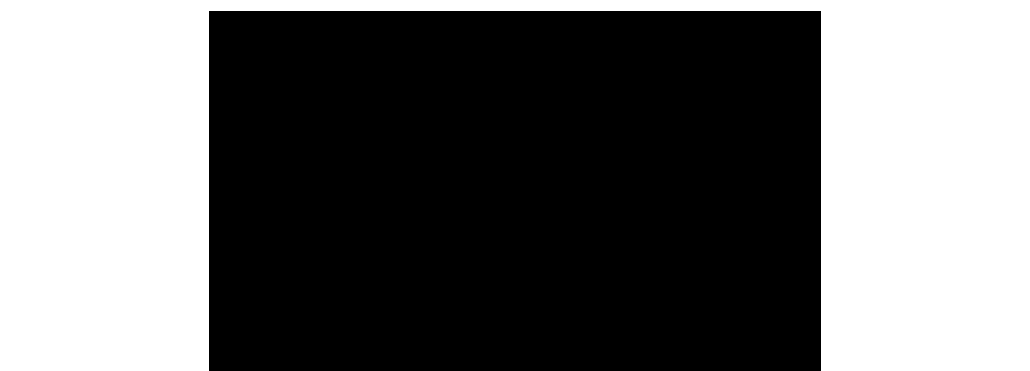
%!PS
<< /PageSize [1030 371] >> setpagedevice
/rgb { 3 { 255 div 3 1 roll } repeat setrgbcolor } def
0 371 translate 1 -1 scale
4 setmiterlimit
255 255 255 rgb
0 0 1030 371 rectfill
0 0 0 rgb
209 11 612 360 rectfill
showpage
